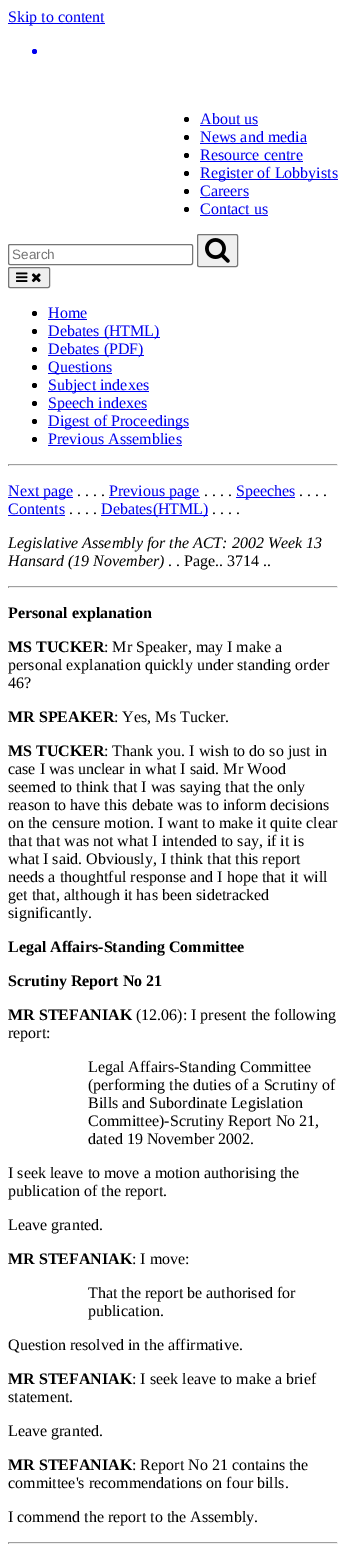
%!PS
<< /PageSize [346 1556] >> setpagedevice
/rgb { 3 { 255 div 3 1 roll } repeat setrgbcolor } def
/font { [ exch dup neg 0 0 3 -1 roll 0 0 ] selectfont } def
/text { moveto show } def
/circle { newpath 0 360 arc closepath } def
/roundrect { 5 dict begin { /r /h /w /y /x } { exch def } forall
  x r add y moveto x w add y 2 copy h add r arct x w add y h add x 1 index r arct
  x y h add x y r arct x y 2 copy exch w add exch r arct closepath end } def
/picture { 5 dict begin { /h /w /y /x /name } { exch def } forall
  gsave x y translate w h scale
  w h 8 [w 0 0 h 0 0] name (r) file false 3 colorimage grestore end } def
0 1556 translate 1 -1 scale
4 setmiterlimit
255 255 255 rgb
0 0 346 1556 rectfill
0 0 238 rgb
8 23 97 1 rectfill
34.5 51.5 2.5 circle fill
0 0 0 rgb
186.5 119.5 2.5 circle fill
0 0 238 rgb
200 125 58 1 rectfill
0 0 0 rgb
186.5 137.5 2.5 circle fill
0 0 238 rgb
200 143 107 1 rectfill
0 0 0 rgb
186.5 155.5 2.5 circle fill
0 0 238 rgb
200 161 103 1 rectfill
0 0 0 rgb
186.5 173.5 2.5 circle fill
0 0 238 rgb
200 179 138 1 rectfill
0 0 0 rgb
186.5 191.5 2.5 circle fill
0 0 238 rgb
200 197 49 1 rectfill
0 0 0 rgb
186.5 209.5 2.5 circle fill
0 0 238 rgb
200 215 68 1 rectfill
118 118 118 rgb
8.5 244.5 184 20 1.5 roundrect stroke
239 239 239 rgb
197.5 234.5 40 32 1.5 roundrect gsave fill grestore
118 118 118 rgb
stroke
(img_01.rgb) 205 238 25 25 picture
239 239 239 rgb
8.5 267.5 41 20 1.5 roundrect gsave fill grestore
118 118 118 rgb
stroke
(img_02.rgb) 16 272 12 10 picture
(img_03.rgb) 31 273 10 10 picture
0 0 0 rgb
34.5 313.5 2.5 circle fill
0 0 238 rgb
48 319 39 1 rectfill
0 0 0 rgb
34.5 331.5 2.5 circle fill
0 0 238 rgb
48 337 112 1 rectfill
0 0 0 rgb
34.5 349.5 2.5 circle fill
0 0 238 rgb
48 355 96 1 rectfill
0 0 0 rgb
34.5 367.5 2.5 circle fill
0 0 238 rgb
48 373 64 1 rectfill
0 0 0 rgb
34.5 385.5 2.5 circle fill
0 0 238 rgb
48 391 101 1 rectfill
0 0 0 rgb
34.5 403.5 2.5 circle fill
0 0 238 rgb
48 409 99 1 rectfill
0 0 0 rgb
34.5 421.5 2.5 circle fill
0 0 238 rgb
48 427 141 1 rectfill
0 0 0 rgb
34.5 439.5 2.5 circle fill
0 0 238 rgb
48 445 134 1 rectfill
159 159 159 rgb
8 464 330 1 rectfill
238 238 238 rgb
337 464 1 2 rectfill
8 465 330 1 rectfill
159 159 159 rgb
8 464 1 2 rectfill
0 0 238 rgb
8 497 65 1 rectfill
109 497 91 1 rectfill
236 497 59 1 rectfill
8 515 57 1 rectfill
101 515 107 1 rectfill
159 159 159 rgb
8 586 330 1 rectfill
238 238 238 rgb
337 586 1 2 rectfill
8 587 330 1 rectfill
159 159 159 rgb
8 586 1 2 rectfill
8 1542 330 1 rectfill
238 238 238 rgb
337 1542 1 2 rectfill
8 1543 330 1 rectfill
159 159 159 rgb
8 1542 1 2 rectfill
/LiberationSerif-Regular 16 font
0 0 238 rgb
(Skip to content) 8 22 text
(About us) 200 124 text
(News and media) 200 142 text
(Resource centre) 200 160 text
(Register of Lobbyists) 200 178 text
(Careers) 200 196 text
(Contact us) 200 214 text
/LiberationSans-Regular 13.5 font
117 117 117 rgb
(Search) 12 259 text
/LiberationSerif-Regular 16 font
0 0 238 rgb
(Home) 48 318 text
(Debates \(HTML\)) 48 336 text
(Debates \(PDF\)) 48 354 text
(Questions) 48 372 text
(Subject indexes) 48 390 text
(Speech indexes) 48 408 text
(Digest of Proceedings) 48 426 text
(Previous Assemblies) 48 444 text
(Next page) 8 496 text
0 0 0 rgb
(. . . .) 77 496 text
0 0 238 rgb
(Previous page) 109 496 text
0 0 0 rgb
(. . . .) 204 496 text
0 0 238 rgb
(Speeches) 236 496 text
0 0 0 rgb
(. . . .) 299 496 text
0 0 238 rgb
(Contents) 8 514 text
0 0 0 rgb
(. . . .) 69 514 text
0 0 238 rgb
(Debates\(HTML\)) 101 514 text
0 0 0 rgb
(. . . .) 212 514 text
/LiberationSerif-Italic 16 font
(Legislative Assembly for the ACT: 2002 Week 13) 8 548 text
(Hansard \(19 November\)) 8 566 text
/LiberationSerif-Regular 16 font
(. . Page.. 3714 ..) 168 566 text
/LiberationSerif-Bold 16 font
(Personal explanation) 8 618 text
(MS TUCKER) 8 652 text
/LiberationSerif-Regular 16 font
(: Mr Speaker, may I make a) 104 652 text
(personal explanation quickly under standing order) 8 670 text
(46?) 8 688 text
/LiberationSerif-Bold 16 font
(MR SPEAKER) 8 722 text
/LiberationSerif-Regular 16 font
(: Yes, Ms Tucker.) 114 722 text
/LiberationSerif-Bold 16 font
(MS TUCKER) 8 756 text
/LiberationSerif-Regular 16 font
(: Thank you. I wish to do so just in) 104 756 text
(case I was unclear in what I said. Mr Wood) 8 774 text
(seemed to think that I was saying that the only) 8 792 text
(reason to have this debate was to inform decisions) 8 810 text
(on the censure motion. I want to make it quite clear) 8 828 text
(that that was not what I intended to say, if it is) 8 846 text
(what I said. Obviously, I think that this report) 8 864 text
(needs a thoughtful response and I hope that it will) 8 882 text
(get that, although it has been sidetracked) 8 900 text
(significantly.) 8 918 text
/LiberationSerif-Bold 16 font
(Legal Affairs-Standing Committee) 8 952 text
(Scrutiny Report No 21) 8 986 text
(MR STEFANIAK) 8 1020 text
/LiberationSerif-Regular 16 font
(\(12.06\): I present the following) 136 1020 text
(report:) 8 1038 text
(Legal Affairs-Standing Committee) 88 1072 text
(\(performing the duties of a Scrutiny of) 88 1090 text
(Bills and Subordinate Legislation) 88 1108 text
(Committee\)-Scrutiny Report No 21,) 88 1126 text
(dated 19 November 2002.) 88 1144 text
(I seek leave to move a motion authorising the) 8 1178 text
(publication of the report.) 8 1196 text
(Leave granted.) 8 1230 text
/LiberationSerif-Bold 16 font
(MR STEFANIAK) 8 1264 text
/LiberationSerif-Regular 16 font
(: I move:) 132 1264 text
(That the report be authorised for) 88 1298 text
(publication.) 88 1316 text
(Question resolved in the affirmative.) 8 1350 text
/LiberationSerif-Bold 16 font
(MR STEFANIAK) 8 1384 text
/LiberationSerif-Regular 16 font
(: I seek leave to make a brief) 132 1384 text
(statement.) 8 1402 text
(Leave granted.) 8 1436 text
/LiberationSerif-Bold 16 font
(MR STEFANIAK) 8 1470 text
/LiberationSerif-Regular 16 font
(: Report No 21 contains the) 132 1470 text
(committee's recommendations on four bills.) 8 1488 text
(I commend the report to the Assembly.) 8 1522 text
showpage
